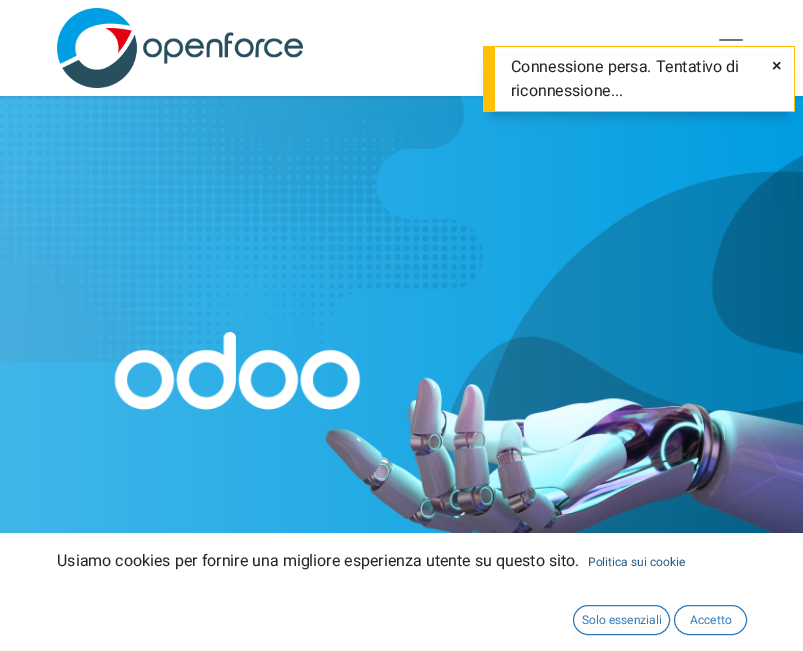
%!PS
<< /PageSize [803 651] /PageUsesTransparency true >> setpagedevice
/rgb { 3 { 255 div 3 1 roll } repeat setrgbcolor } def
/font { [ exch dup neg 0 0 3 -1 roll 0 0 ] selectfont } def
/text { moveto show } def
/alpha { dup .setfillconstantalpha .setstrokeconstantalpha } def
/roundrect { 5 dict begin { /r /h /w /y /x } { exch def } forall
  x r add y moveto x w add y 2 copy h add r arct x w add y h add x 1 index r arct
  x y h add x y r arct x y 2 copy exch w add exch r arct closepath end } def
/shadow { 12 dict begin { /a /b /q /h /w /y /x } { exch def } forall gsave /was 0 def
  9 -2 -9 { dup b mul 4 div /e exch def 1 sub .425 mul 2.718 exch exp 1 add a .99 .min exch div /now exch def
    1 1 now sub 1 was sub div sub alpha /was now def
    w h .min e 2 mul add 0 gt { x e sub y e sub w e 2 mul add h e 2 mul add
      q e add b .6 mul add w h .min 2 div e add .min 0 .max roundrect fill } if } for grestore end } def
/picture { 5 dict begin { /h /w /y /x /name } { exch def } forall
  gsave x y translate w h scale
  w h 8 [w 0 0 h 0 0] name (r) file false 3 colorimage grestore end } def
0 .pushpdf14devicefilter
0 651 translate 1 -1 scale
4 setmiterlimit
255 255 255 rgb
0 0 803 651 rectfill
(img_03.rgb) 0 96 803 437 picture
0 0 0 rgb
493 68 292 46 0 7 0.25 shadow
gsave
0 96 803 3 rectclip
0 2 803 96 0 2 0.07 shadow
grestore
255 255 255 rgb
495 56 299 55 rectfill
255 193 7 rgb
495 46 300 1 rectfill
794 46 1 66 rectfill
495 111 300 1 rectfill
483 46 12 66 rectfill
(img_01.rgb) 57 8 246 80 picture
(img_02.rgb) 719 39 24 2 picture
51 122 183 rgb
573.5 605.5 96 29 14.5 roundrect stroke
674.5 605.5 72 29 14.5 roundrect stroke
/Roboto-Regular 16 font
33 37 41 rgb
(Connessione persa. Tentativo di) 511 72 text
(riconnessione...) 511 96 text
/LiberationSans-Bold 16 font
(×) 772 71 text
/Roboto-Regular 16 font
(Usiamo cookies per fornire una migliore esperienza utente su questo sito.) 57 566 text
/Roboto-Regular 12 font
38 90 135 rgb
(Politica sui cookie) 588 566 text
51 122 183 rgb
(Solo essenziali) 582 624 text
(Accetto) 690 624 text
.poppdf14devicefilter showpage
